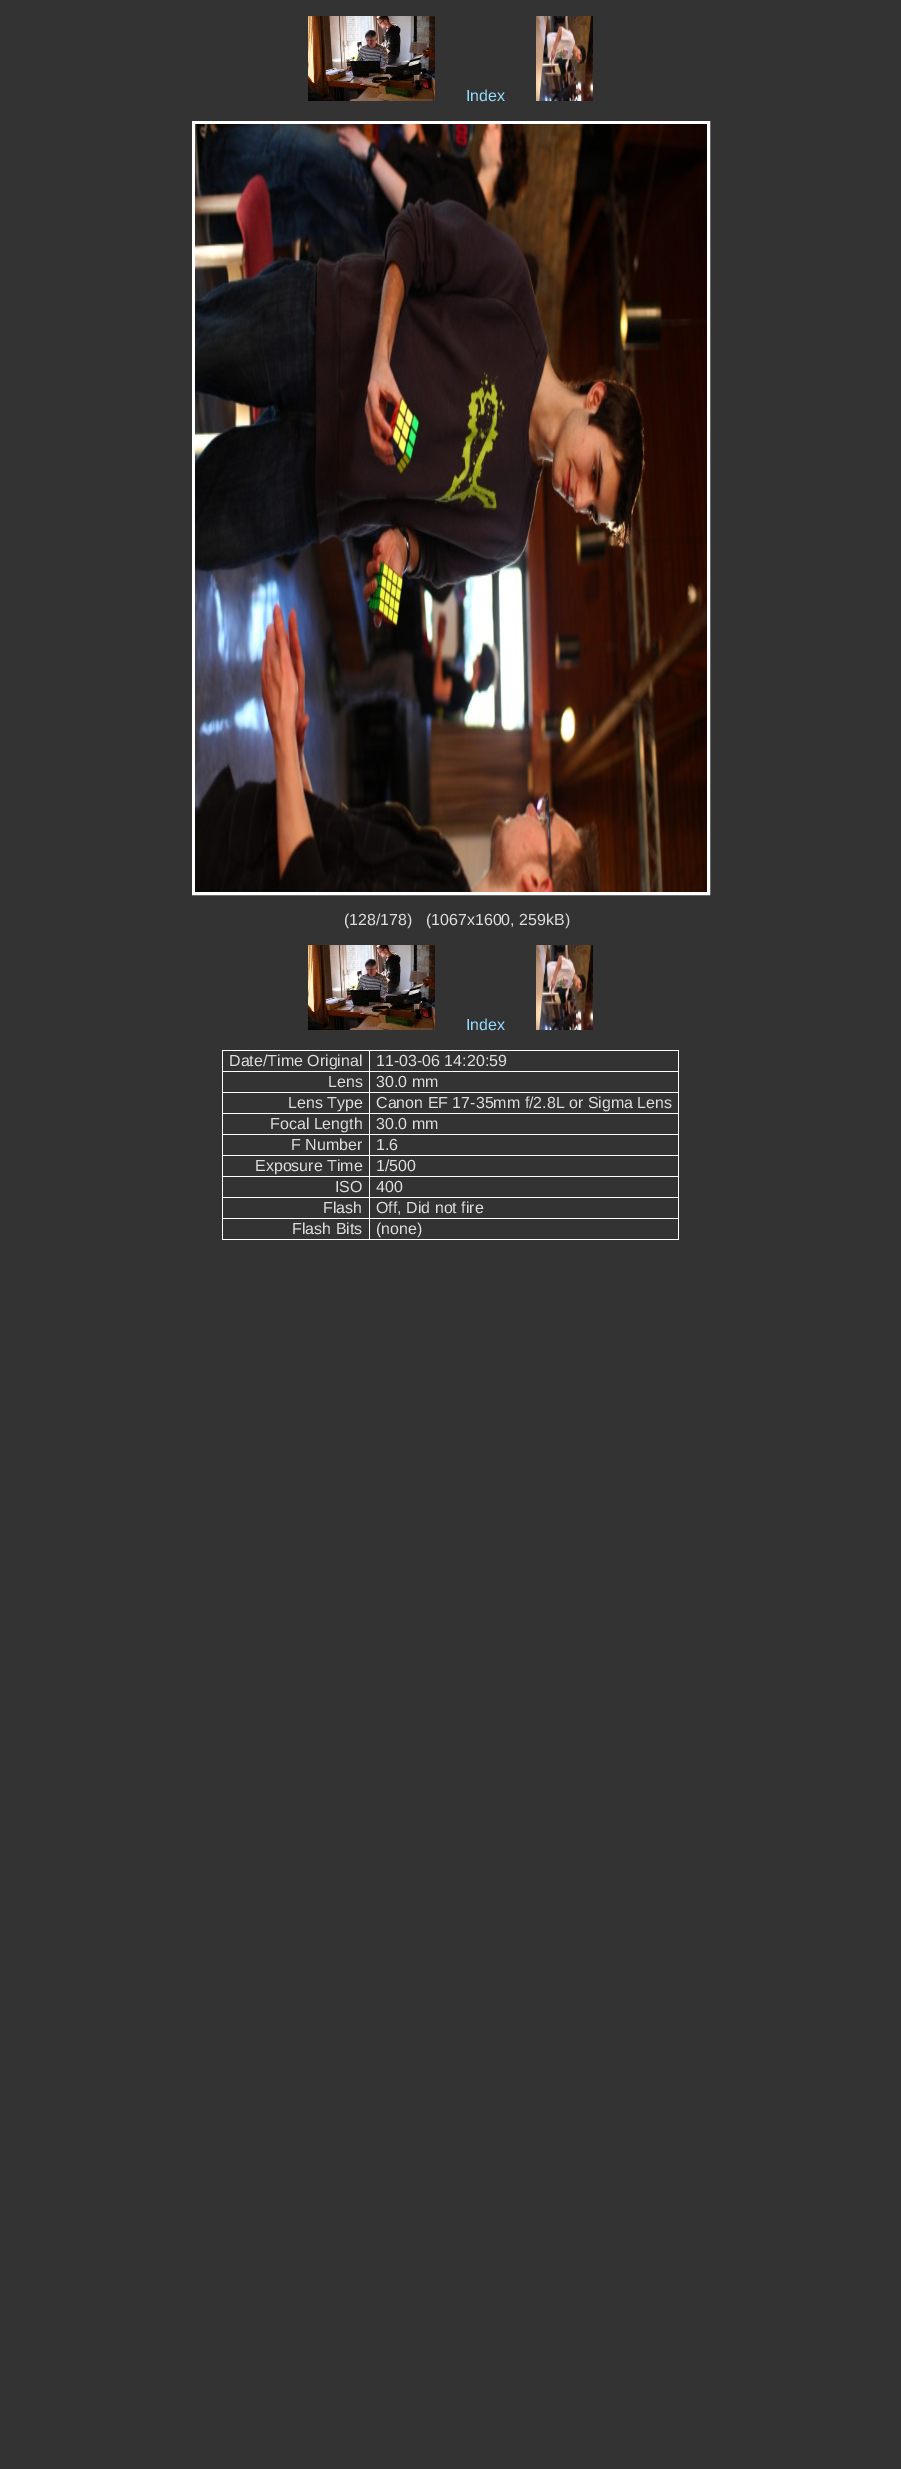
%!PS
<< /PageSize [901 2469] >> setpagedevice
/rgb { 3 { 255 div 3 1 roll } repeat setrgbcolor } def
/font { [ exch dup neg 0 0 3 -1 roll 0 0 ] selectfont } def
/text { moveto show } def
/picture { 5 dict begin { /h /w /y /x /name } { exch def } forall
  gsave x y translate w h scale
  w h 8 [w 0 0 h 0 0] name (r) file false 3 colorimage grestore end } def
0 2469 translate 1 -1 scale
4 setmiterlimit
51 51 51 rgb
0 0 901 2469 rectfill
(img_01.rgb) 308 16 127 85 picture
(img_02.rgb) 536 16 57 85 picture
255 255 255 rgb
3 setlinewidth
193.5 122.5 515 771 rectstroke
(img_03.rgb) 195 124 512 768 picture
(img_01.rgb) 308 945 127 85 picture
(img_02.rgb) 536 945 57 85 picture
222 1050 457 190 rectfill
51 51 51 rgb
223 1051 146 20 rectfill
370 1051 308 20 rectfill
223 1072 146 20 rectfill
370 1072 308 20 rectfill
223 1093 146 20 rectfill
370 1093 308 20 rectfill
223 1114 146 20 rectfill
370 1114 308 20 rectfill
223 1135 146 20 rectfill
370 1135 308 20 rectfill
223 1156 146 20 rectfill
370 1156 308 20 rectfill
223 1177 146 20 rectfill
370 1177 308 20 rectfill
223 1198 146 20 rectfill
370 1198 308 20 rectfill
223 1219 146 20 rectfill
370 1219 308 20 rectfill
/LiberationSans-Regular 16 font
149 221 255 rgb
(Index) 466 101 text
221 221 221 rgb
(\(128/178\)   \(1067x1600, 259kB\)) 344 925 text
149 221 255 rgb
(Index) 466 1030 text
221 221 221 rgb
(Date/Time Original) 229 1066 text
(11-03-06 14:20:59) 376 1066 text
(Lens) 328 1087 text
(30.0 mm) 376 1087 text
(Lens Type) 288 1108 text
(Canon EF 17-35mm f/2.8L or Sigma Lens) 376 1108 text
(Focal Length) 270 1129 text
(30.0 mm) 376 1129 text
(F Number) 291 1150 text
(1.6) 376 1150 text
(Exposure Time) 255 1171 text
(1/500) 376 1171 text
(ISO) 335 1192 text
(400) 376 1192 text
(Flash) 323 1213 text
(Off, Did not fire) 376 1213 text
(Flash Bits) 292 1234 text
(\(none\)) 376 1234 text
showpage
